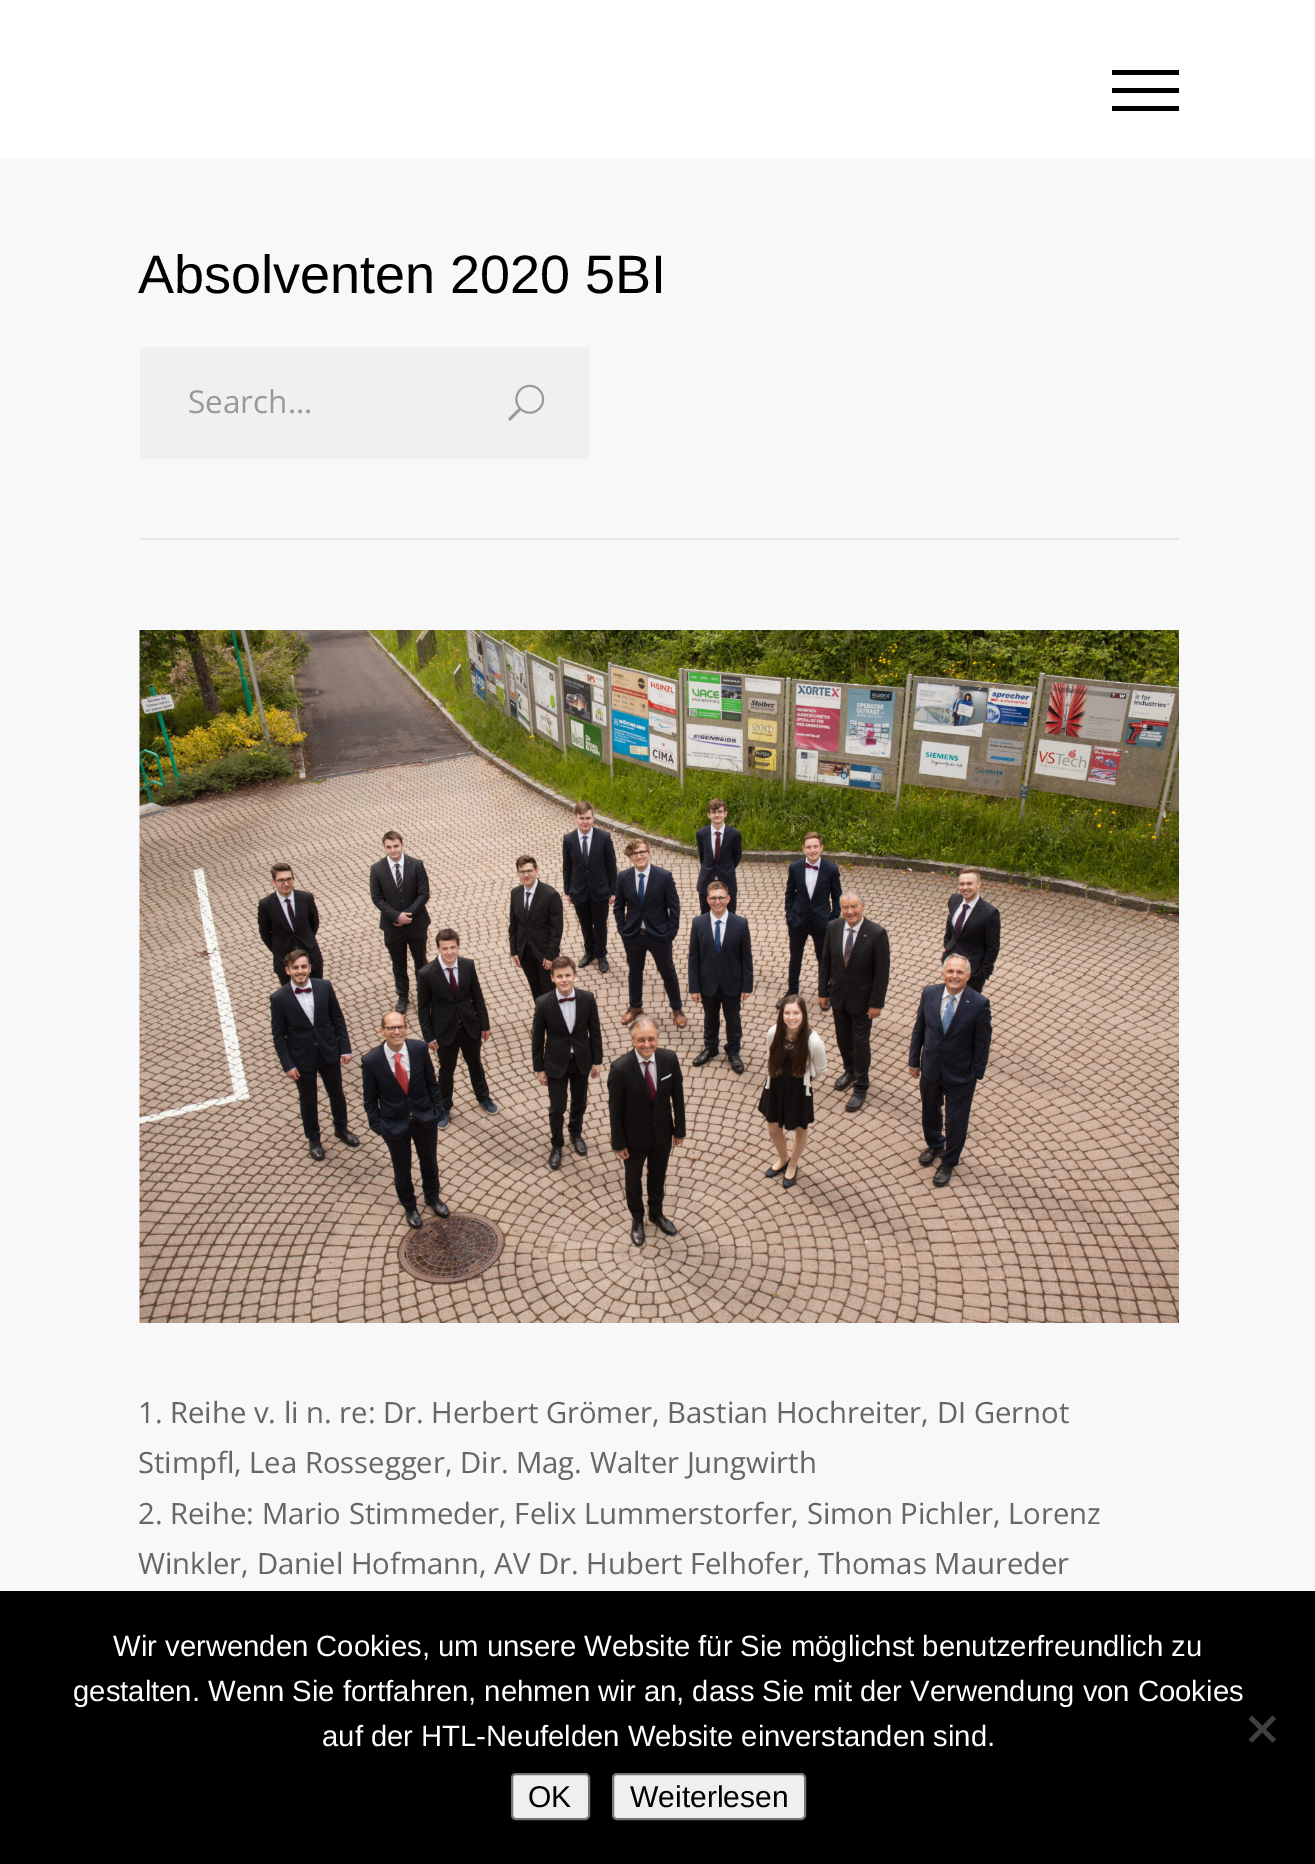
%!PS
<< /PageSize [1315 1864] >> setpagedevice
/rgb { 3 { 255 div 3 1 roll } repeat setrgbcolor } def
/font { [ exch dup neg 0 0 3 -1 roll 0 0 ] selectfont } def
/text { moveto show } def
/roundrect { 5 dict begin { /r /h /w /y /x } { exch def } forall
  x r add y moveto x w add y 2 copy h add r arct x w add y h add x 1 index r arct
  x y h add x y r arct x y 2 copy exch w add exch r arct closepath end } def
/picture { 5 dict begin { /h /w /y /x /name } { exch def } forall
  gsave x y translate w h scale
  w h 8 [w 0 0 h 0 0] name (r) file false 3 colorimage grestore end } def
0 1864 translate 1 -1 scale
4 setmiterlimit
248 248 248 rgb
0 0 1315 1864 rectfill
255 255 255 rgb
0 0 1315 158 rectfill
0 0 0 rgb
1112 70 67 5 rectfill
1112 88 67 5 rectfill
1112 106 67 5 rectfill
229 229 229 rgb
140 538 1039 2 rectfill
240 240 240 rgb
140 347 450 112 rectfill
(img_01.rgb) 508 384 37 37 picture
(img_02.rgb) 139 630 1040 693 picture
0 0 0 rgb
0 1591 1315 273 rectfill
64 64 64 rgb
1272.5 1715.5 moveto 3.5 3.5 rlineto -24 23.5 rlineto -3.5 -3 rlineto closepath fill
1248.5 1719 moveto 3.5 -3.5 rlineto 24 24 rlineto -3.5 3 rlineto closepath fill
239 239 239 rgb
512 1774 77 45 4 roundrect gsave fill grestore
118 118 118 rgb
2 setlinewidth
stroke
239 239 239 rgb
613 1774 192 45 4 roundrect gsave fill grestore
118 118 118 rgb
stroke
/LiberationSans-Regular 54 font
0 0 0 rgb
(Absolventen 2020 5BI) 138 293 text
/OpenSans-Regular 31.5 font
153 153 153 rgb
(Search...) 188 413 text
/OpenSans-Regular 29.25 font
102 102 102 rgb
(1. Reihe v. li n. re: Dr. Herbert Grömer, Bastian Hochreiter, DI Gernot) 138 1423 text
(Stimpfl, Lea Rossegger, Dir. Mag. Walter Jungwirth) 138 1473 text
(2. Reihe: Mario Stimmeder, Felix Lummerstorfer, Simon Pichler, Lorenz) 138 1524 text
(Winkler, Daniel Hofmann, AV Dr. Hubert Felhofer, Thomas Maureder) 138 1574 text
/LiberationSans-Regular 29.25 font
255 255 255 rgb
(Wir verwenden Cookies, um unsere Website für Sie möglichst benutzerfreundlich zu) 113 1656 text
(gestalten. Wenn Sie fortfahren, nehmen wir an, dass Sie mit der Verwendung von Cookies) 73 1701 text
(auf der HTL-Neufelden Website einverstanden sind.) 322 1746 text
/LiberationSans-Regular 30 font
0 0 0 rgb
(OK) 528 1807 text
(Weiterlesen) 630 1807 text
showpage
